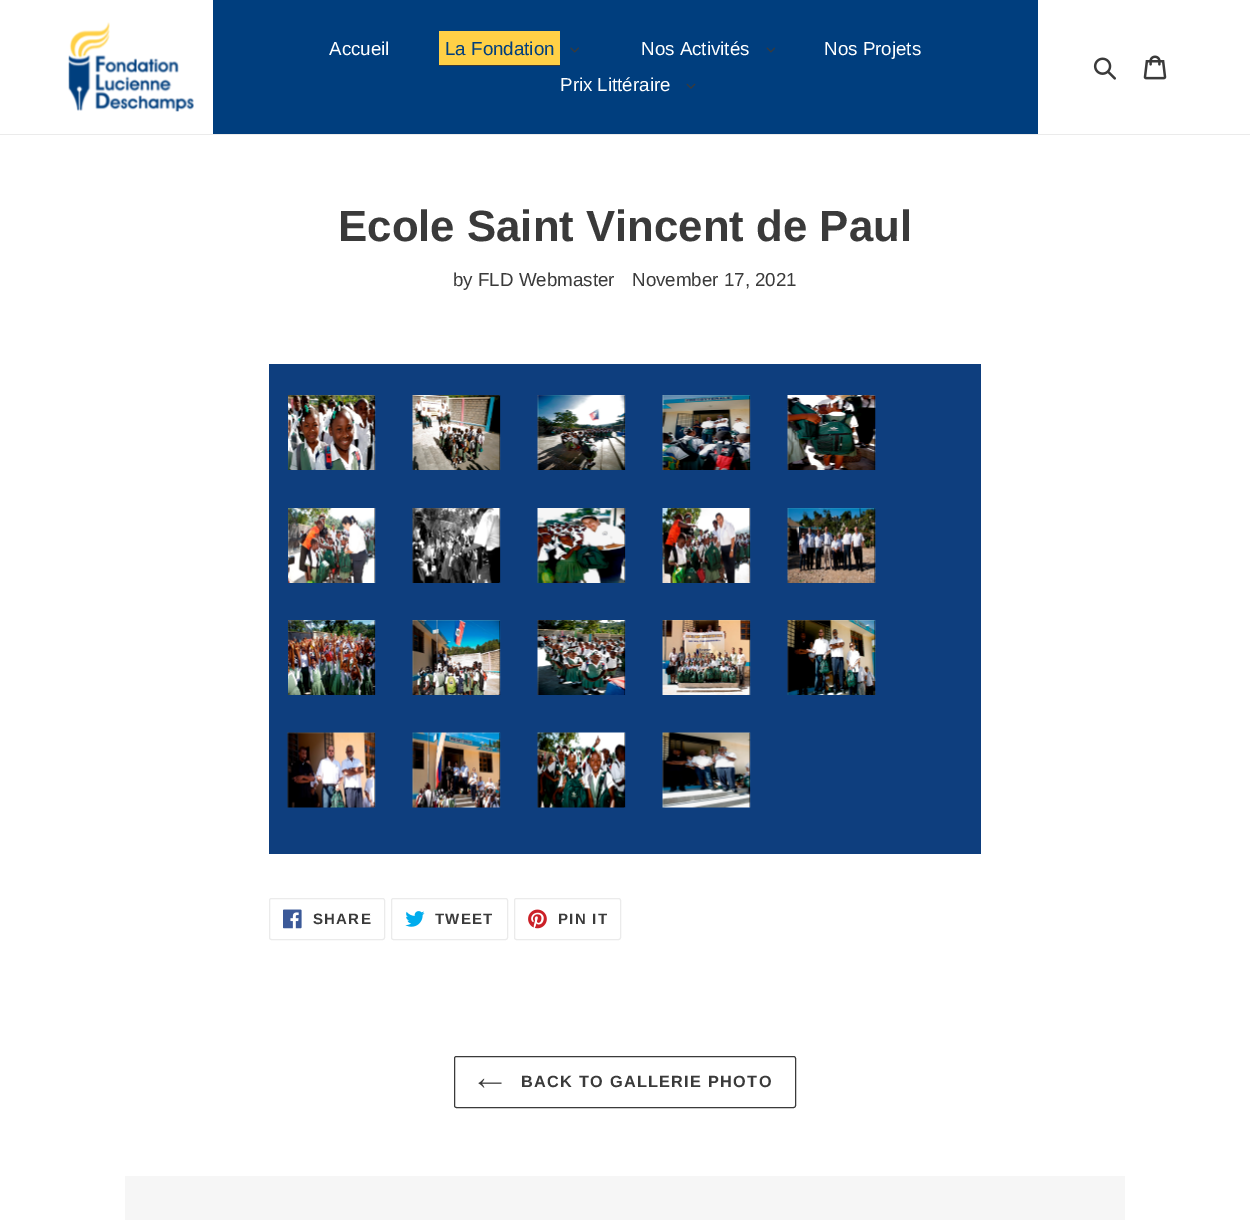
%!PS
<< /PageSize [1250 1220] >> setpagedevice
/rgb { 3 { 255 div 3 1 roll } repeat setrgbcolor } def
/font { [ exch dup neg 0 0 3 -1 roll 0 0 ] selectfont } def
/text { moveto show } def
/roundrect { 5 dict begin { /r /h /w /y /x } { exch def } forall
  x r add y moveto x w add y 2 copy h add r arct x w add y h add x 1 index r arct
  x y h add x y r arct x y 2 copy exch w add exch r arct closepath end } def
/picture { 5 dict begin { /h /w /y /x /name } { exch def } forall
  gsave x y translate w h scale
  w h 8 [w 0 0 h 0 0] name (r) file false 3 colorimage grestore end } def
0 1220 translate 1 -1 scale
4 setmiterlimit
255 255 255 rgb
0 0 1250 1220 rectfill
235 235 235 rgb
0 134 1250 1 rectfill
(img_01.rgb) 68 22 126 90 picture
0 62 126 rgb
213 0 825 134 rectfill
255 208 70 rgb
439 31 121 34 rectfill
58 58 58 rgb
439 65 121 1 rectfill
(img_02.rgb) 570 47 9 6 picture
(img_03.rgb) 766 47 9 6 picture
(img_04.rgb) 686 83 10 6 picture
(img_05.rgb) 1093 57 23 23 picture
(img_06.rgb) 1143 55 24 25 picture
14 62 126 rgb
269 364 712 490 rectfill
0 0 0 rgb
374 396 1 74 rectfill
(img_07.rgb) 288 395 88 75 picture
499 396 1 74 rectfill
(img_08.rgb) 412 395 89 75 picture
624 396 1 74 rectfill
(img_09.rgb) 537 395 89 75 picture
749 396 1 74 rectfill
(img_10.rgb) 662 395 89 75 picture
874 396 1 74 rectfill
(img_11.rgb) 787 395 89 75 picture
374 508 1 74 rectfill
(img_12.rgb) 288 508 88 75 picture
499 508 1 74 rectfill
(img_13.rgb) 412 508 89 75 picture
624 508 1 74 rectfill
(img_14.rgb) 537 508 89 75 picture
749 508 1 74 rectfill
(img_15.rgb) 662 508 89 75 picture
874 508 1 74 rectfill
(img_16.rgb) 787 508 89 75 picture
374 621 1 74 rectfill
(img_17.rgb) 288 620 88 75 picture
499 621 1 74 rectfill
(img_18.rgb) 412 620 89 75 picture
624 621 1 74 rectfill
(img_19.rgb) 537 620 89 75 picture
749 621 1 74 rectfill
(img_20.rgb) 662 620 89 75 picture
874 621 1 74 rectfill
(img_21.rgb) 787 620 89 75 picture
374 733 1 74 rectfill
(img_22.rgb) 287 732 89 76 picture
499 733 1 74 rectfill
(img_23.rgb) 412 732 89 76 picture
624 733 1 74 rectfill
(img_24.rgb) 537 732 89 76 picture
749 733 1 74 rectfill
(img_25.rgb) 662 732 89 76 picture
235 235 235 rgb
269.5 898.5 115 41 2 roundrect stroke
(img_26.rgb) 283 909 19 20 picture
391.5 898.5 116 41 2 roundrect stroke
(img_27.rgb) 405 911 20 16 picture
514.5 898.5 106 41 2 roundrect stroke
(img_28.rgb) 528 909 19 20 picture
58 58 58 rgb
454.5 1056.5 341 51 2 roundrect stroke
(img_29.rgb) 478 1078 24 10 picture
246 246 246 rgb
125 1176 1000 44 rectfill
/LiberationSans-Regular 18.75 font
255 255 255 rgb
(Accueil) 329 55 text
0 62 126 rgb
(La Fondation) 445 55 text
255 255 255 rgb
(Nos Activités) 641 55 text
(Nos Projets) 824 55 text
(Prix Littéraire) 560 91 text
/LiberationSans-Bold 43.75 font
58 58 58 rgb
(Ecole Saint Vincent de Paul) 338 241 text
/LiberationSans-Regular 18.75 font
(by FLD Webmaster) 453 286 text
(November 17, 2021) 632 286 text
/LiberationSans-Bold 15 font
313 924 moveto 1.25 0 (SHARE) ashow
435 924 moveto 1.25 0 (TWEET) ashow
558 924 moveto 1.25 0 (PIN IT) ashow
/LiberationSans-Bold 16.25 font
521 1087 moveto 1.3 0 (BACK TO GALLERIE PHOTO) ashow
showpage
